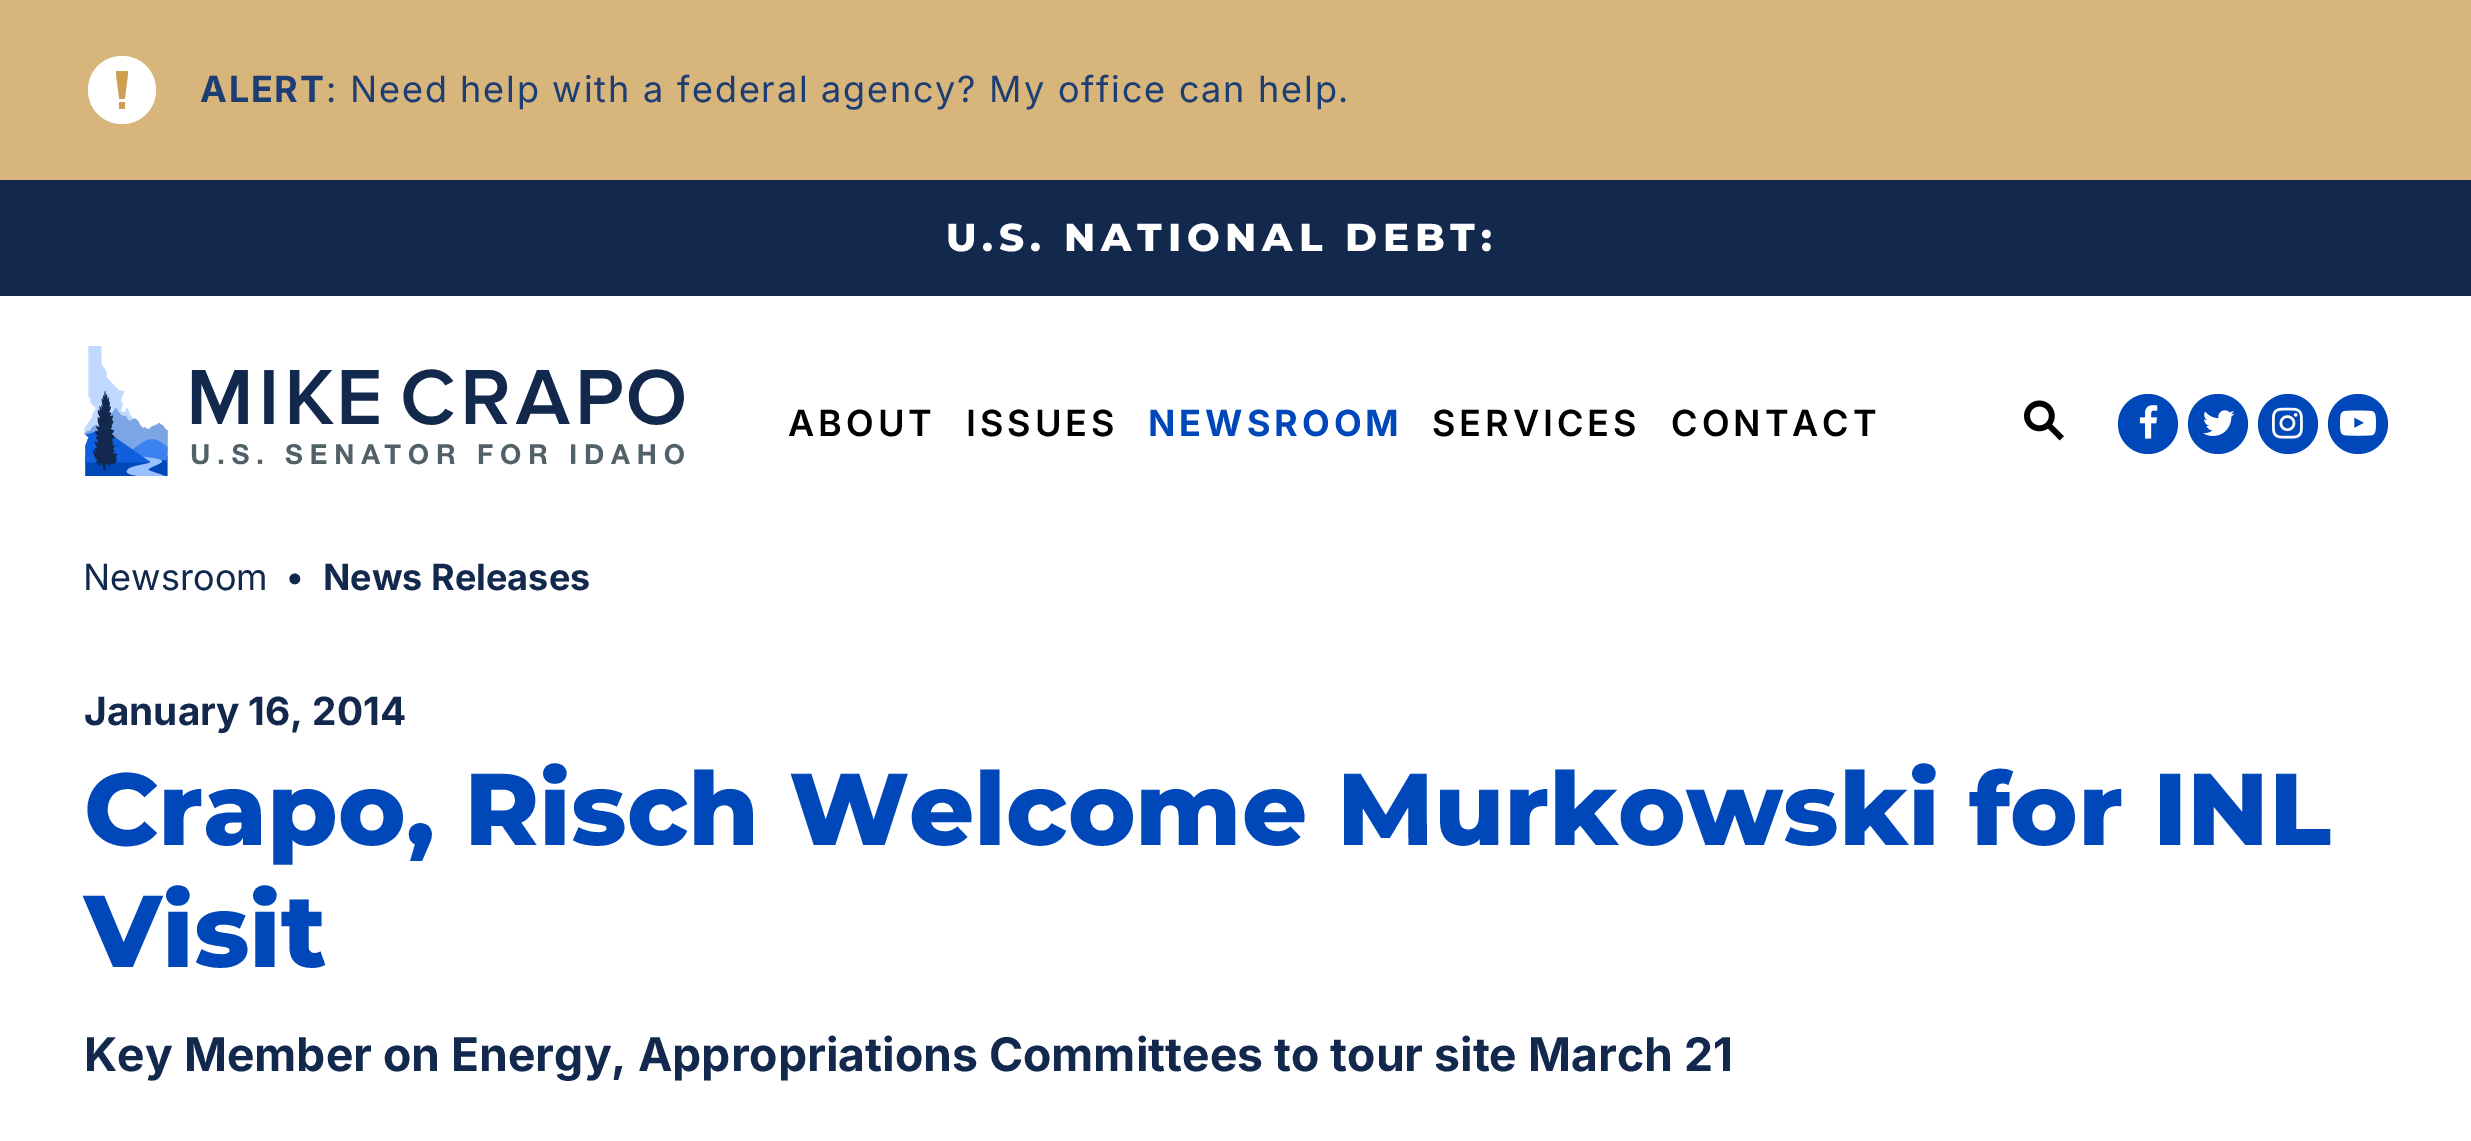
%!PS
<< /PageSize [2471 1141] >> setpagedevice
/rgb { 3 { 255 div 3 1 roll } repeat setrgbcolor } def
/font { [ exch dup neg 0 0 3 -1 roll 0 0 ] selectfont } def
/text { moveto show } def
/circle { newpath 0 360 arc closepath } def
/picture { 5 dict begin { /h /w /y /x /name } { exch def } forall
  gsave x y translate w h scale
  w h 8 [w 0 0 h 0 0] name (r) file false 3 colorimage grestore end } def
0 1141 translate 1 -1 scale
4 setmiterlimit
255 255 255 rgb
0 0 2471 1141 rectfill
216 181 122 rgb
0 0 2471 180 rectfill
204 159 83 rgb
116 71 12 38 rectfill
255 255 255 rgb
122 56 moveto -19 0 -34 15 -34 34 rcurveto 0 19 15 34 34 34 rcurveto 19 0 34 -15 34 -34 rcurveto 0 -19 -15 -34 -34 -34 rcurveto closepath 125 109 moveto -6 0 rlineto 0 -7 rlineto 6 0 rlineto closepath 128 76 moveto -3 23 rlineto -6 0 rlineto -3 -23 rlineto 0 -5 rlineto 12 0 rlineto closepath fill
18 40 76 rgb
0 180 2471 116 rectfill
(img_01.rgb) 84 346 600 130 picture
(img_02.rgb) 2024 400 40 41 picture
0 71 186 rgb
2148 424 30 circle fill
(img_03.rgb) 2139 405 19 34 picture
2218 424 30 circle fill
(img_04.rgb) 2203 410 32 26 picture
2288 424 30 circle fill
(img_05.rgb) 2272 407 31 32 picture
2358 424 30 circle fill
(img_06.rgb) 2340 410 36 26 picture
/Inter-Bold 36 font
28 62 117 rgb
200 102 moveto 1.8 0 (ALERT) ashow
/Inter-Regular 36 font
326 102 moveto 1.8 0 (: Need help with a federal agency? My office can help.) ashow
/Montserrat-ExtraBold 38.8 font
255 255 255 rgb
946 251 moveto 5.8 0 (U.S. NATIONAL DEBT:) ashow
/Inter-SemiBold 36 font
0 0 0 rgb
788 436 moveto 4 0 (ABOUT) ashow
966 436 moveto 4 0 (ISSUES) ashow
/Inter-Bold 36 font
0 71 186 rgb
1148 436 moveto 4 0 (NEWSROOM) ashow
/Inter-SemiBold 36 font
0 0 0 rgb
1432 436 moveto 4 0 (SERVICES) ashow
1671 436 moveto 4 0 (CONTACT) ashow
/Inter-Regular 36 font
18 40 76 rgb
(Newsroom) 83 590 text
/Inter-Regular 35 font
(•) 285 589 text
/Inter-Bold 36 font
(News Releases) 323 590 text
/Inter-Bold 38.8 font
(January 16, 2014) 84 725 text
/Montserrat-ExtraBold 101.75 font
0 71 186 rgb
(Crapo, Risch Welcome Murkowski for INL) 84 845 text
(Visit) 84 967 text
/Inter-Bold 46.25 font
18 40 76 rgb
(Key Member on Energy, Appropriations Committees to tour site March 21) 84 1071 text
showpage
